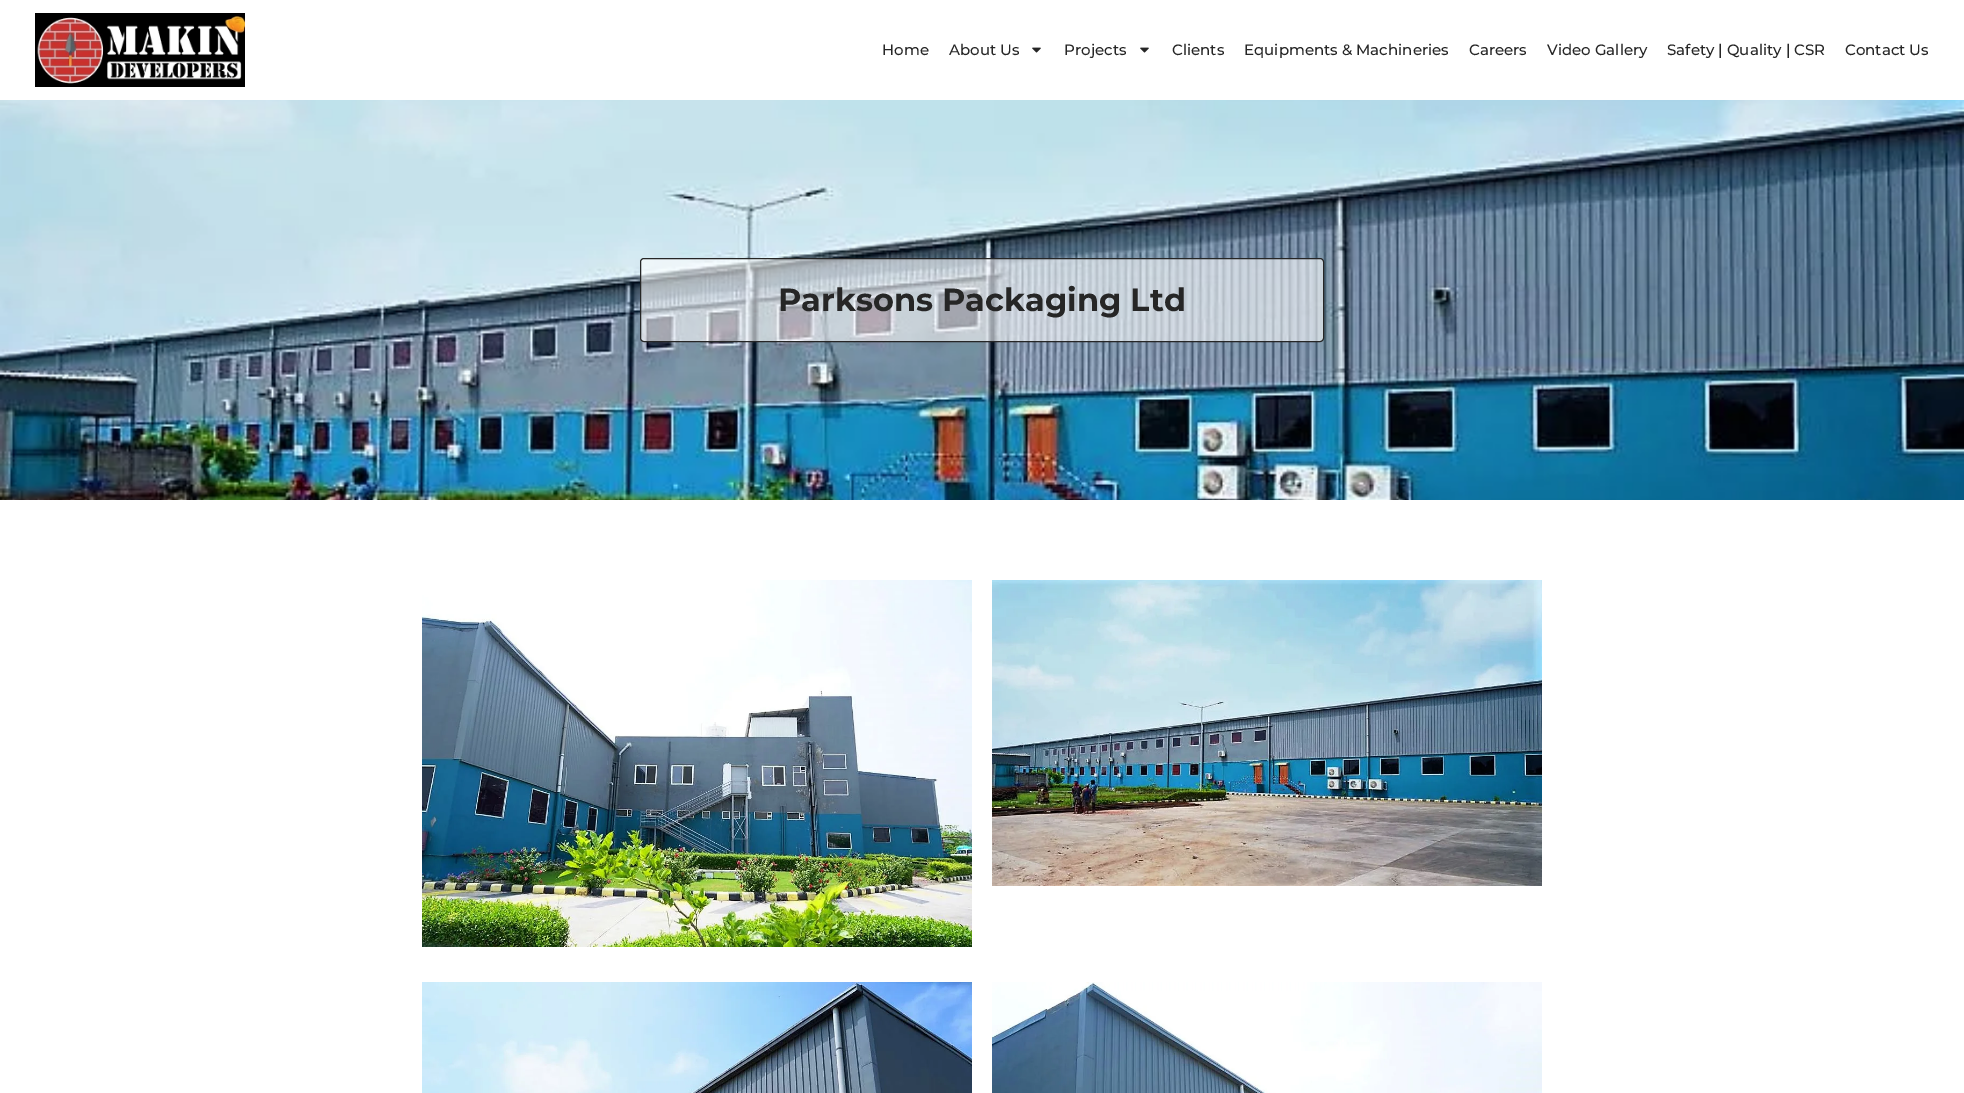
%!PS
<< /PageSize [1964 1093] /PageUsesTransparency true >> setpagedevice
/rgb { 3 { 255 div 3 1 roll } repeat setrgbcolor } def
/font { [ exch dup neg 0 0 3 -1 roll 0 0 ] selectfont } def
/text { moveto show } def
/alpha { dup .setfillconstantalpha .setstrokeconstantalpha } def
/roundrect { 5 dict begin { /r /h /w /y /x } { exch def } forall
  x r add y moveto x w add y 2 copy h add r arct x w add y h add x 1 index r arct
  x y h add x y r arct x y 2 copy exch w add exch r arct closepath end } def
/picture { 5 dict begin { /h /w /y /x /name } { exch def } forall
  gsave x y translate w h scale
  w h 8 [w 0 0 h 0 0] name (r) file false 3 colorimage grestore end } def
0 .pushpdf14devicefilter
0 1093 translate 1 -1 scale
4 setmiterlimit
255 255 255 rgb
0 0 1964 1093 rectfill
(img_01.rgb) 35 13 210 74 picture
(img_02.rgb) 1032 47 9 6 picture
(img_02.rgb) 1140 47 9 6 picture
(img_03.rgb) 0 100 1964 400 picture
0.59 alpha
640.5 258.5 683 83 3.5 roundrect fill
1 alpha
38 38 38 rgb
640.5 258.5 683 83 3.5 roundrect stroke
(img_04.rgb) 422 580 550 367 picture
(img_05.rgb) 992 580 550 306 picture
(img_06.rgb) 422 982 550 111 picture
(img_07.rgb) 992 982 550 111 picture
/Montserrat-Medium 15 font
(Home) 882 55 text
(About Us) 949 55 text
(Projects) 1064 55 text
(Clients) 1172 55 text
(Equipments & Machineries) 1244 55 text
(Careers) 1469 55 text
(Video Gallery) 1547 55 text
(Safety | Quality | CSR) 1667 55 text
(Contact Us) 1845 55 text
/Montserrat-Bold 32 font
(Parksons Packaging Ltd) 778 311 text
.poppdf14devicefilter showpage
